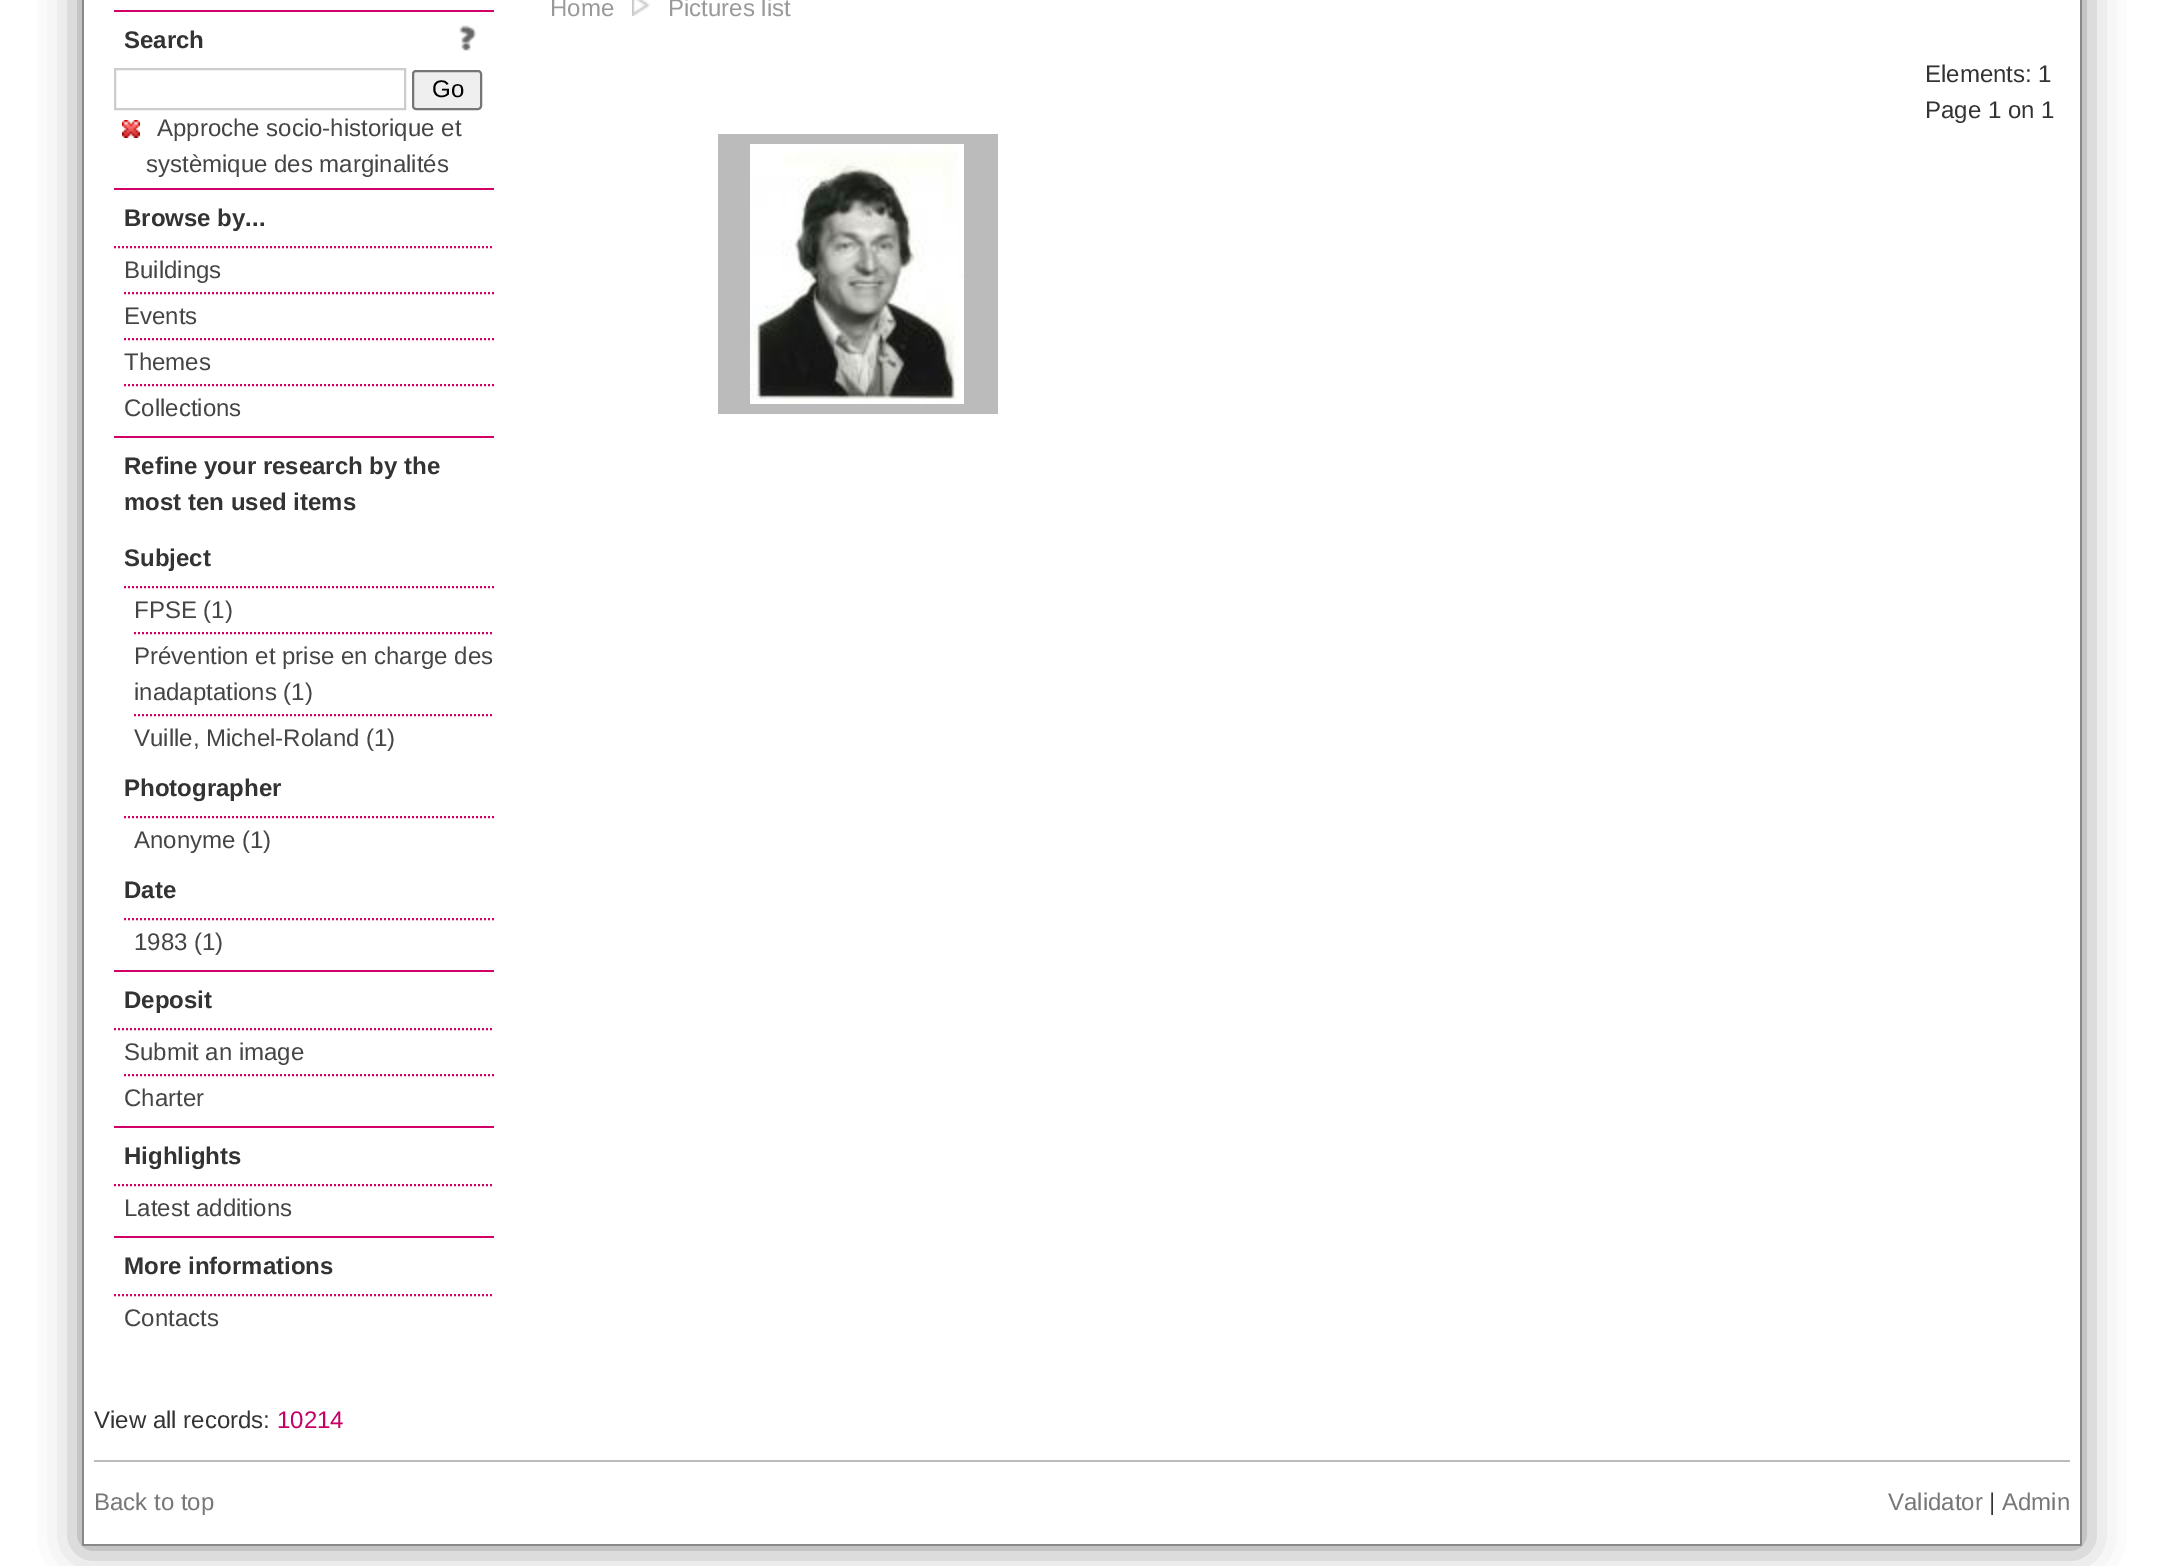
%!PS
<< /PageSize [2163 1566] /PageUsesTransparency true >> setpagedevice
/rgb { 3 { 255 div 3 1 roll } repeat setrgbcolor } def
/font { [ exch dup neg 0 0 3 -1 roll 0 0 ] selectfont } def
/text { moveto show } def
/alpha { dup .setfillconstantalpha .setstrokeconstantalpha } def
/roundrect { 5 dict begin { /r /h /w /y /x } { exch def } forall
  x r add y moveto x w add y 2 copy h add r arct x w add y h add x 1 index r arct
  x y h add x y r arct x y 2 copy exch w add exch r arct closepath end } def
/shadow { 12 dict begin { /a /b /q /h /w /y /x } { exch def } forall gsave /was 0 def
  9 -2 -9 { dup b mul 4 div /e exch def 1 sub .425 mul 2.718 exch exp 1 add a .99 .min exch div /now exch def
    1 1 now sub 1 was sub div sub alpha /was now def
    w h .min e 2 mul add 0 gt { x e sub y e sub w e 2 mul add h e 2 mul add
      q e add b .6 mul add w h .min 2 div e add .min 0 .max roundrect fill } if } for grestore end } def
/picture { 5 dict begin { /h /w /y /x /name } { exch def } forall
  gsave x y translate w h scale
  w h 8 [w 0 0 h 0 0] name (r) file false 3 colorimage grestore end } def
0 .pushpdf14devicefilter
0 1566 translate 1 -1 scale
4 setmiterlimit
255 255 255 rgb
0 0 2163 1566 rectfill
gsave
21 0 moveto 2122 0 rlineto 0 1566 rlineto -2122 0 rlineto closepath 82 -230 moveto 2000 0 rlineto 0 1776 rlineto -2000 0 rlineto closepath eoclip newpath
136 136 136 rgb
82 -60 2000 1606 0 20 1 shadow
grestore
136 136 136 rgb
2080 0 2 1546 rectfill
82 0 2 1370 rectfill
212 0 105 rgb
114 10 380 2 rectfill
(img_01.rgb) 459 25 18 26 picture
204 204 204 rgb
2 setlinewidth
115 69 290 40 rectstroke
239 239 239 rgb
413 71 68 38 3 roundrect gsave fill grestore
118 118 118 rgb
stroke
(img_02.rgb) 122 120 18 18 picture
212 0 105 rgb
114 188 380 2 rectfill
[2 2] 0 setdash
114 247 moveto 380 0 rlineto stroke
124 293 moveto 370 0 rlineto stroke
124 339 moveto 370 0 rlineto stroke
124 385 moveto 370 0 rlineto stroke
114 436 380 2 rectfill
124 587 moveto 370 0 rlineto stroke
134 633 moveto 360 0 rlineto stroke
134 715 moveto 360 0 rlineto stroke
124 817 moveto 370 0 rlineto stroke
124 919 moveto 370 0 rlineto stroke
114 970 380 2 rectfill
114 1029 moveto 380 0 rlineto stroke
124 1075 moveto 370 0 rlineto stroke
114 1126 380 2 rectfill
114 1185 moveto 380 0 rlineto stroke
114 1236 380 2 rectfill
114 1295 moveto 380 0 rlineto stroke
(img_03.rgb) 632 0 18 16 picture
187 187 187 rgb
718 134 280 280 rectfill
(img_04.rgb) 750 144 214 260 picture
136 136 136 rgb
82 1544 2000 2 rectfill
82 1370 2 176 rectfill
187 187 187 rgb
94 1460 1976 2 rectfill
/LiberationSans-Bold 24 font
51 51 51 rgb
(Search) 124 48 text
/LiberationSans-Regular 24 font
0 0 0 rgb
(Go) 432 97 text
69 69 69 rgb
(Approche socio-historique et) 157 136 text
(systèmique des marginalités) 146 172 text
/LiberationSans-Bold 24 font
51 51 51 rgb
(Browse by...) 124 226 text
/LiberationSans-Regular 24 font
69 69 69 rgb
(Buildings) 124 278 text
(Events) 124 324 text
(Themes) 124 370 text
(Collections) 124 416 text
/LiberationSans-Bold 24 font
51 51 51 rgb
(Refine your research by the) 124 474 text
(most ten used items) 124 510 text
(Subject) 124 566 text
/LiberationSans-Regular 24 font
69 69 69 rgb
(FPSE \(1\)) 134 618 text
(Prévention et prise en charge des) 134 664 text
(inadaptations \(1\)) 134 700 text
(Vuille, Michel-Roland \(1\)) 134 746 text
/LiberationSans-Bold 24 font
51 51 51 rgb
(Photographer) 124 796 text
/LiberationSans-Regular 24 font
69 69 69 rgb
(Anonyme \(1\)) 134 848 text
/LiberationSans-Bold 24 font
51 51 51 rgb
(Date) 124 898 text
/LiberationSans-Regular 24 font
69 69 69 rgb
(1983 \(1\)) 134 950 text
/LiberationSans-Bold 24 font
51 51 51 rgb
(Deposit) 124 1008 text
/LiberationSans-Regular 24 font
69 69 69 rgb
(Submit an image) 124 1060 text
(Charter) 124 1106 text
/LiberationSans-Bold 24 font
51 51 51 rgb
(Highlights) 124 1164 text
/LiberationSans-Regular 24 font
69 69 69 rgb
(Latest additions) 124 1216 text
/LiberationSans-Bold 24 font
51 51 51 rgb
(More informations) 124 1274 text
/LiberationSans-Regular 24 font
69 69 69 rgb
(Contacts) 124 1326 text
153 153 153 rgb
(Home) 550 16 text
(Pictures list) 668 16 text
51 51 51 rgb
(Elements: 1) 1925 82 text
(Page 1 on 1) 1925 118 text
(View all records:) 94 1428 text
198 0 101 rgb
(10214) 277 1428 text
119 119 119 rgb
(Back to top) 94 1510 text
(Validator) 1888 1510 text
51 51 51 rgb
(|) 1989 1510 text
119 119 119 rgb
(Admin) 2002 1510 text
.poppdf14devicefilter showpage
